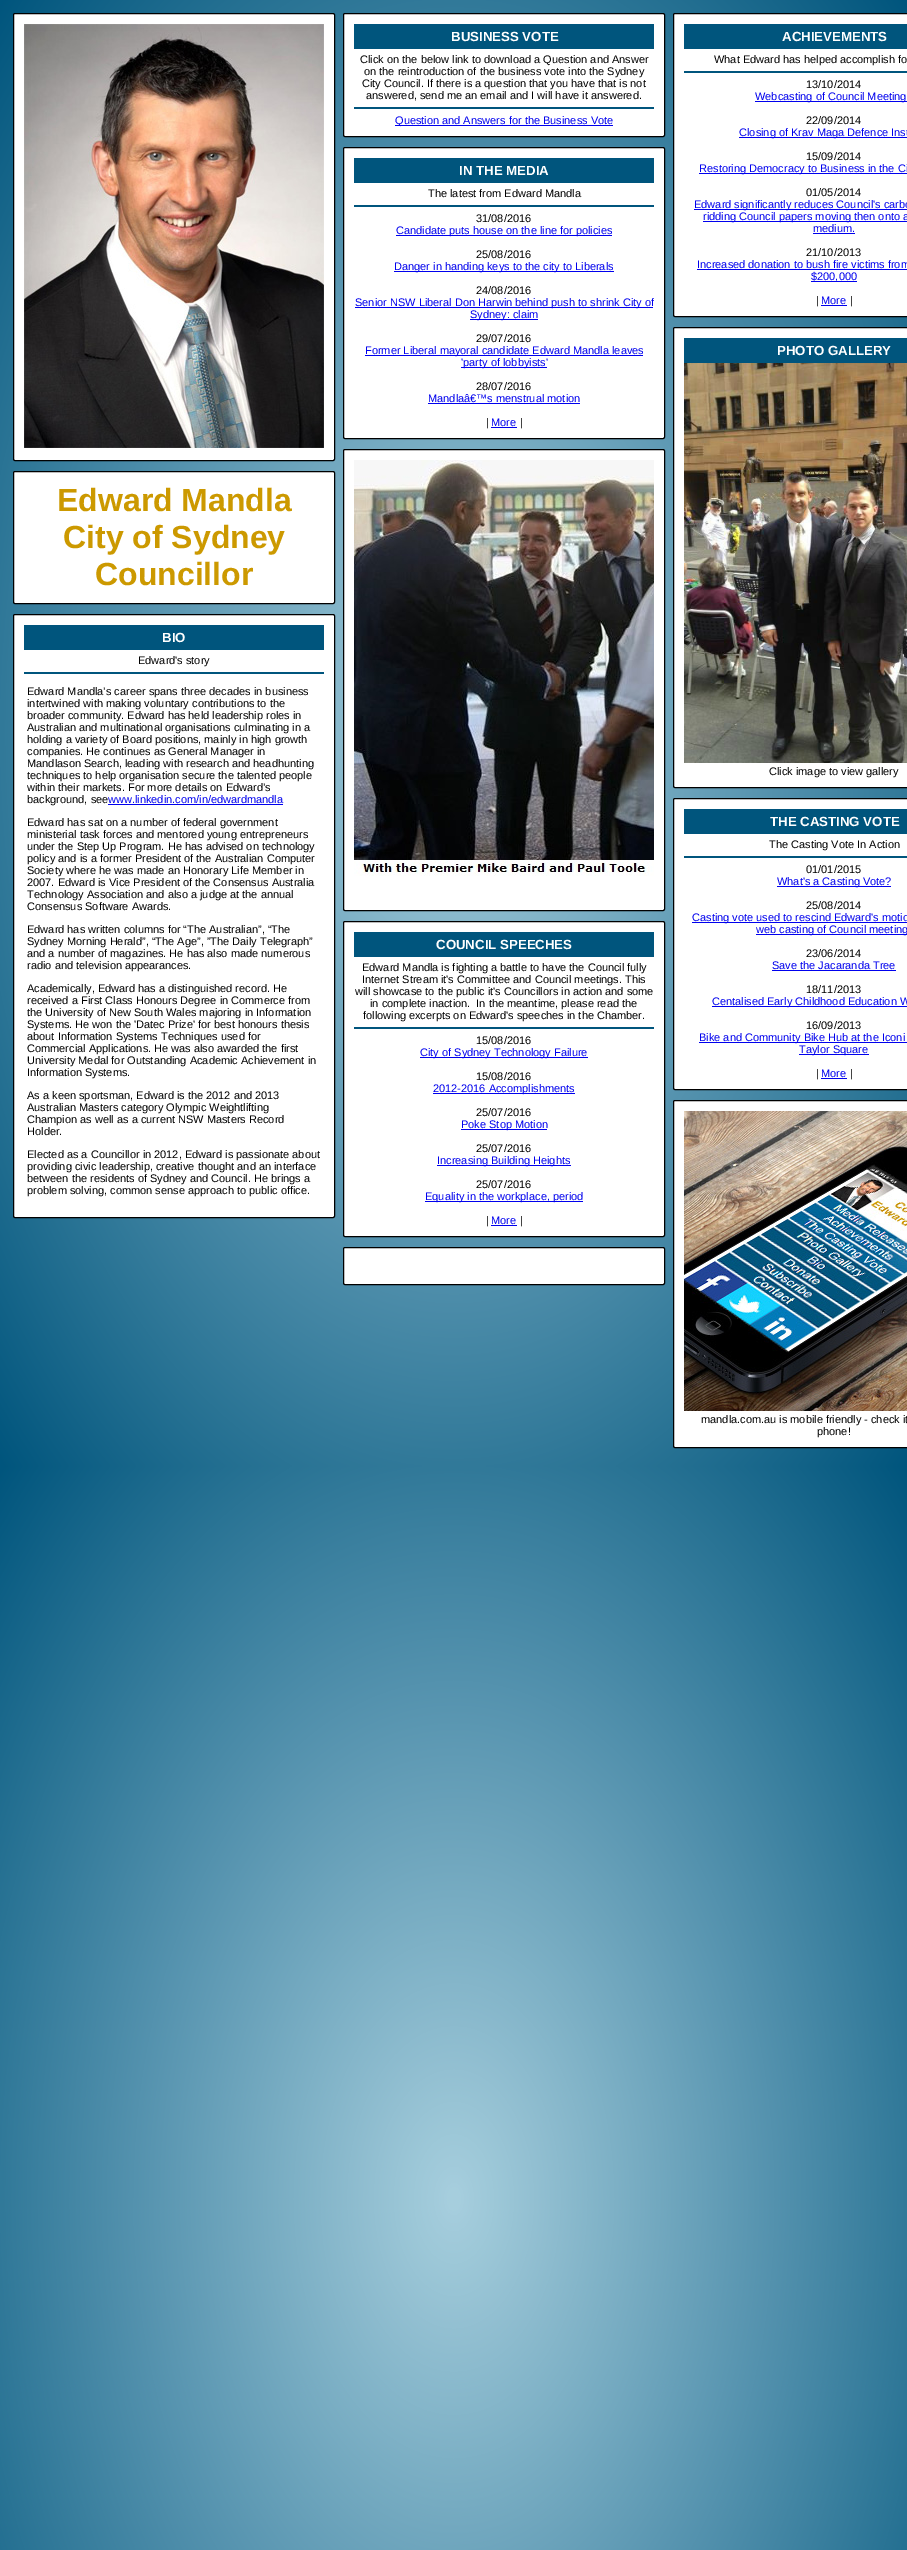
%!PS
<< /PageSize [907 2550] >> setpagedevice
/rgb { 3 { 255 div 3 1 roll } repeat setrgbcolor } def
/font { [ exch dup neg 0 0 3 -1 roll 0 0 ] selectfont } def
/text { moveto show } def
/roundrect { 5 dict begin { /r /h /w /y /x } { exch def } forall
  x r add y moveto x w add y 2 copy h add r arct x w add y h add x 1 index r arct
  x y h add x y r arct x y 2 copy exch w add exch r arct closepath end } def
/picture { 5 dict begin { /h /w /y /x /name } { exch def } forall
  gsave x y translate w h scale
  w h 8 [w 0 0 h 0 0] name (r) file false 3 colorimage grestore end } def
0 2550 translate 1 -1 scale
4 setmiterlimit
255 255 255 rgb
0 0 907 2550 rectfill
gsave 0 0 moveto 907 0 rlineto 0 1466 rlineto -907 0 rlineto closepath clip newpath 454 733 translate 641 1037 scale
<< /ShadingType 3 /ColorSpace /DeviceRGB /Coords [0 0 0 0 0 1] /Extend [true true] /Function << /FunctionType 3 /Domain [0 1] /Functions [<< /FunctionType 2 /Domain [0 1] /C0 [0.651 0.808 0.867] /C1 [0.651 0.808 0.867] /N 1 >> << /FunctionType 2 /Domain [0 1] /C0 [0.651 0.808 0.867] /C1 [0 0.333 0.49] /N 1 >>] /Bounds [0.01] /Encode [0 1 0 1] >> >> shfill grestore
gsave 0 1466 moveto 907 0 rlineto 0 1084 rlineto -907 0 rlineto closepath clip newpath 454 2199 translate 641 1037 scale
<< /ShadingType 3 /ColorSpace /DeviceRGB /Coords [0 0 0 0 0 1] /Extend [true true] /Function << /FunctionType 3 /Domain [0 1] /Functions [<< /FunctionType 2 /Domain [0 1] /C0 [0.651 0.808 0.867] /C1 [0.651 0.808 0.867] /N 1 >> << /FunctionType 2 /Domain [0 1] /C0 [0.651 0.808 0.867] /C1 [0 0.333 0.49] /N 1 >>] /Bounds [0.01] /Encode [0 1 0 1] >> >> shfill grestore
13.5 13.5 321 447 1.5 roundrect gsave fill grestore
0 0 0 rgb
stroke
(img_01.rgb) 24 24 300 424 picture
255 255 255 rgb
13.5 471.5 321 132 1.5 roundrect gsave fill grestore
0 0 0 rgb
stroke
255 255 255 rgb
13.5 614.5 321 603 1.5 roundrect gsave fill grestore
0 0 0 rgb
stroke
0 85 125 rgb
24 625 300 25 rectfill
24 672 300 2 rectfill
0 0 238 rgb
108 804 175 1 rectfill
255 255 255 rgb
343.5 13.5 321 123 1.5 roundrect gsave fill grestore
0 0 0 rgb
stroke
0 85 125 rgb
354 24 300 25 rectfill
354 107 300 2 rectfill
0 0 238 rgb
395 125 218 1 rectfill
255 255 255 rgb
343.5 147.5 321 291 1.5 roundrect gsave fill grestore
0 0 0 rgb
stroke
0 85 125 rgb
354 158 300 25 rectfill
354 205 300 2 rectfill
0 0 238 rgb
396 235 216 1 rectfill
394 271 220 1 rectfill
355 307 298 1 rectfill
470 319 68 1 rectfill
365 355 278 1 rectfill
461 367 86 1 rectfill
428 403 152 1 rectfill
491 427 26 1 rectfill
255 255 255 rgb
343.5 449.5 321 461 1.5 roundrect gsave fill grestore
0 0 0 rgb
stroke
(img_02.rgb) 354 460 300 416 picture
255 255 255 rgb
343.5 921.5 321 315 1.5 roundrect gsave fill grestore
0 0 0 rgb
stroke
0 85 125 rgb
354 932 300 25 rectfill
354 1027 300 2 rectfill
0 0 238 rgb
420 1057 168 1 rectfill
433 1093 142 1 rectfill
461 1129 86 1 rectfill
437 1165 134 1 rectfill
425 1201 158 1 rectfill
491 1225 26 1 rectfill
255 255 255 rgb
343.5 1247.5 321 37 1.5 roundrect gsave fill grestore
0 0 0 rgb
stroke
255 255 255 rgb
673.5 13.5 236 303 1.5 roundrect gsave fill grestore
0 0 0 rgb
stroke
0 85 125 rgb
684 24 223 25 rectfill
684 71 223 2 rectfill
0 0 238 rgb
755 101 152 1 rectfill
739 137 168 1 rectfill
699 173 208 1 rectfill
694 209 213 1 rectfill
703 221 204 1 rectfill
813 233 42 1 rectfill
697 269 210 1 rectfill
811 281 46 1 rectfill
821 305 26 1 rectfill
255 255 255 rgb
673.5 327.5 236 460 1.5 roundrect gsave fill grestore
0 0 0 rgb
stroke
0 85 125 rgb
684 338 223 25 rectfill
(img_03.rgb) 684 363 223 400 picture
255 255 255 rgb
673.5 798.5 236 291 1.5 roundrect gsave fill grestore
0 0 0 rgb
stroke
0 85 125 rgb
684 809 223 25 rectfill
684 856 223 2 rectfill
0 0 238 rgb
777 886 114 1 rectfill
692 922 215 1 rectfill
756 934 151 1 rectfill
772 970 124 1 rectfill
712 1006 195 1 rectfill
699 1042 208 1 rectfill
799 1054 70 1 rectfill
821 1078 26 1 rectfill
255 255 255 rgb
673.5 1100.5 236 347 1.5 roundrect gsave fill grestore
0 0 0 rgb
stroke
(img_04.rgb) 684 1111 223 300 picture
/LiberationSans-Bold 32 font
204 153 0 rgb
(Edward Mandla) 57 511 text
(City of Sydney) 63 548 text
(Councillor) 95 585 text
/LiberationSans-Bold 13.25 font
255 255 255 rgb
(BIO) 162 642 text
/LiberationSans-Regular 11 font
0 0 0 rgb
(Edward's story) 138 664 text
(Edward Mandla’s career spans three decades in business) 27 695 text
(intertwined with making voluntary contributions to the) 27 707 text
(broader community. Edward has held leadership roles in) 27 719 text
(Australian and multinational organisations culminating in a) 27 731 text
(holding a variety of Board positions, mainly in high growth) 27 743 text
(companies. He continues as General Manager in) 27 755 text
(Mandlason Search, leading with research and headhunting) 27 767 text
(techniques to help organisation secure the talented people) 27 779 text
(within their markets. For more details on Edward’s) 27 791 text
(background, see) 27 803 text
0 0 238 rgb
(www.linkedin.com/in/edwardmandla) 108 803 text
0 0 0 rgb
(Edward has sat on a number of federal government) 27 826 text
(ministerial task forces and mentored young entrepreneurs) 27 838 text
(under the Step Up Program. He has advised on technology) 27 850 text
(policy and is a former President of the Australian Computer) 27 862 text
(Society where he was made an Honorary Life Member in) 27 874 text
(2007. Edward is Vice President of the Consensus Australia) 27 886 text
(Technology Association and also a judge at the annual) 27 898 text
(Consensus Software Awards.) 27 910 text
(Edward has written columns for “The Australian”, “The) 27 933 text
(Sydney Morning Herald”, “The Age”, ”The Daily Telegraph”) 27 945 text
(and a number of magazines. He has also made numerous) 27 957 text
(radio and television appearances.) 27 969 text
(Academically, Edward has a distinguished record. He) 27 992 text
(received a First Class Honours Degree in Commerce from) 27 1004 text
(the University of New South Wales majoring in Information) 27 1016 text
(Systems. He won the 'Datec Prize' for best honours thesis) 27 1028 text
(about Information Systems Techniques used for) 27 1040 text
(Commercial Applications. He was also awarded the first) 27 1052 text
(University Medal for Outstanding Academic Achievement in) 27 1064 text
(Information Systems.) 27 1076 text
(As a keen sportsman, Edward is the 2012 and 2013) 27 1099 text
(Australian Masters category Olympic Weightlifting) 27 1111 text
(Champion as well as a current NSW Masters Record) 27 1123 text
(Holder.) 27 1135 text
(Elected as a Councillor in 2012, Edward is passionate about) 27 1158 text
(providing civic leadership, creative thought and an interface) 27 1170 text
(between the residents of Sydney and Council. He brings a) 27 1182 text
(problem solving, common sense approach to public office.) 27 1194 text
/LiberationSans-Bold 13.25 font
255 255 255 rgb
(BUSINESS VOTE) 451 41 text
/LiberationSans-Regular 11 font
0 0 0 rgb
(Click on the below link to download a Question and Answer) 360 63 text
(on the reintroduction of the business vote into the Sydney) 364 75 text
(City Council. If there is a question that you have that is not) 362 87 text
(answered, send me an email and I will have it answered.) 366 99 text
0 0 238 rgb
(Question and Answers for the Business Vote) 395 124 text
/LiberationSans-Bold 13.25 font
255 255 255 rgb
(IN THE MEDIA) 459 175 text
/LiberationSans-Regular 11 font
0 0 0 rgb
(The latest from Edward Mandla) 428 197 text
(31/08/2016) 476 222 text
0 0 238 rgb
(Candidate puts house on the line for policies) 396 234 text
0 0 0 rgb
(25/08/2016) 476 258 text
0 0 238 rgb
(Danger in handing keys to the city to Liberals) 394 270 text
0 0 0 rgb
(24/08/2016) 476 294 text
0 0 238 rgb
(Senior NSW Liberal Don Harwin behind push to shrink City of) 355 306 text
(Sydney: claim) 470 318 text
0 0 0 rgb
(29/07/2016) 476 342 text
0 0 238 rgb
(Former Liberal mayoral candidate Edward Mandla leaves) 365 354 text
('party of lobbyists') 461 366 text
0 0 0 rgb
(28/07/2016) 476 390 text
0 0 238 rgb
(Mandlaâ€™s menstrual motion) 428 402 text
0 0 0 rgb
(|) 486 426 text
0 0 238 rgb
(More) 491 426 text
0 0 0 rgb
(|) 520 426 text
/LiberationSans-Bold 13.25 font
255 255 255 rgb
(COUNCIL SPEECHES) 436 949 text
/LiberationSans-Regular 11 font
0 0 0 rgb
(Edward Mandla is fighting a battle to have the Council fully) 362 971 text
(Internet Stream it's Committee and Council meetings. This) 362 983 text
(will showcase to the public it's Councillors in action and some) 355 995 text
(in complete inaction.  In the meantime, please read the) 370 1007 text
(following excerpts on Edward's speeches in the Chamber.) 363 1019 text
(15/08/2016) 476 1044 text
0 0 238 rgb
(City of Sydney Technology Failure) 420 1056 text
0 0 0 rgb
(15/08/2016) 476 1080 text
0 0 238 rgb
(2012-2016 Accomplishments) 433 1092 text
0 0 0 rgb
(25/07/2016) 476 1116 text
0 0 238 rgb
(Poke Stop Motion) 461 1128 text
0 0 0 rgb
(25/07/2016) 476 1152 text
0 0 238 rgb
(Increasing Building Heights) 437 1164 text
0 0 0 rgb
(25/07/2016) 476 1188 text
0 0 238 rgb
(Equality in the workplace, period) 425 1200 text
0 0 0 rgb
(|) 486 1224 text
0 0 238 rgb
(More) 491 1224 text
0 0 0 rgb
(|) 520 1224 text
/LiberationSans-Bold 13.25 font
255 255 255 rgb
(ACHIEVEMENTS) 782 41 text
/LiberationSans-Regular 11 font
0 0 0 rgb
(What Edward has helped accomplish fo) 714 63 text
(13/10/2014) 806 88 text
0 0 238 rgb
(Webcasting of Council Meeting) 755 100 text
0 0 0 rgb
(22/09/2014) 806 124 text
0 0 238 rgb
(Closing of Krav Maga Defence Inst) 739 136 text
0 0 0 rgb
(15/09/2014) 806 160 text
0 0 238 rgb
(Restoring Democracy to Business in the Ci) 699 172 text
0 0 0 rgb
(01/05/2014) 806 196 text
0 0 238 rgb
(Edward significantly reduces Council's carbo) 694 208 text
(ridding Council papers moving then onto a) 703 220 text
(medium.) 813 232 text
0 0 0 rgb
(21/10/2013) 806 256 text
0 0 238 rgb
(Increased donation to bush fire victims from) 697 268 text
($200,000) 811 280 text
0 0 0 rgb
(|) 816 304 text
0 0 238 rgb
(More) 821 304 text
0 0 0 rgb
(|) 850 304 text
/LiberationSans-Bold 13.25 font
255 255 255 rgb
(PHOTO GALLERY) 777 355 text
/LiberationSans-Regular 11 font
0 0 0 rgb
(Click image to view gallery) 769 775 text
/LiberationSans-Bold 13.25 font
255 255 255 rgb
(THE CASTING VOTE) 770 826 text
/LiberationSans-Regular 11 font
0 0 0 rgb
(The Casting Vote In Action) 769 848 text
(01/01/2015) 806 873 text
0 0 238 rgb
(What's a Casting Vote?) 777 885 text
0 0 0 rgb
(25/08/2014) 806 909 text
0 0 238 rgb
(Casting vote used to rescind Edward's motio) 692 921 text
(web casting of Council meeting) 756 933 text
0 0 0 rgb
(23/06/2014) 806 957 text
0 0 238 rgb
(Save the Jacaranda Tree) 772 969 text
0 0 0 rgb
(18/11/2013) 806 993 text
0 0 238 rgb
(Centalised Early Childhood Education W) 712 1005 text
0 0 0 rgb
(16/09/2013) 806 1029 text
0 0 238 rgb
(Bike and Community Bike Hub at the Iconi) 699 1041 text
(Taylor Square) 799 1053 text
0 0 0 rgb
(|) 816 1077 text
0 0 238 rgb
(More) 821 1077 text
0 0 0 rgb
(|) 850 1077 text
(mandla.com.au is mobile friendly - check it) 701 1423 text
(phone!) 817 1435 text
showpage
